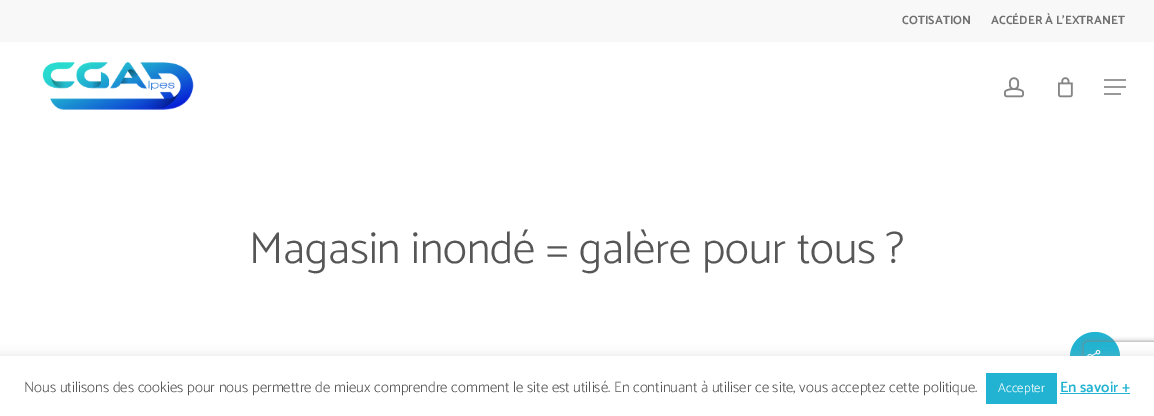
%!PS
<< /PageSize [1154 416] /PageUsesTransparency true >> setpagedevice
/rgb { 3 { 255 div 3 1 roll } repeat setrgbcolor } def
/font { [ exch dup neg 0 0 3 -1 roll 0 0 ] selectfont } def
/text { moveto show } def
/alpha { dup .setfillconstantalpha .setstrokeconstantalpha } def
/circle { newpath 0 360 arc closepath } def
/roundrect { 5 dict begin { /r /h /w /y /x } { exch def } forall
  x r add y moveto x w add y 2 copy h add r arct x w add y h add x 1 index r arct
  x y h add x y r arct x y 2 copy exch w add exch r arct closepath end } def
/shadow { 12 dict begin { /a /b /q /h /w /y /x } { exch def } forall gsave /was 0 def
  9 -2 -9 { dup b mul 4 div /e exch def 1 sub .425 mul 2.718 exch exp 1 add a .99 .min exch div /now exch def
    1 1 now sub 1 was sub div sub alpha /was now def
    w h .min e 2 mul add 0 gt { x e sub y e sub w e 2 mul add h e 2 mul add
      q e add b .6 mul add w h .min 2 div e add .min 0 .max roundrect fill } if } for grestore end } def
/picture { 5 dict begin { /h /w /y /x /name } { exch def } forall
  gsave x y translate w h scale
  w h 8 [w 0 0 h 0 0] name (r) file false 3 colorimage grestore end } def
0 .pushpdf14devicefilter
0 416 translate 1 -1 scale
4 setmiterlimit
255 255 255 rgb
0 0 1154 416 rectfill
248 248 248 rgb
0 0 1154 42 rectfill
(img_01.rgb) 42 62 152 48 picture
(img_02.rgb) 1004 77 20 21 picture
(img_03.rgb) 1058 77 15 21 picture
153 153 153 rgb
1104 79 22 2 rectfill
1104 93 17 2 rectfill
1104 86 22 2 rectfill
33 179 209 rgb
1095 357 25 circle fill
(img_04.rgb) 1087 349 14 7 picture
gsave
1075 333 moveto 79 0 rlineto 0 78 rlineto -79 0 rlineto closepath 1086 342 moveto 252 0 rlineto 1 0 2 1 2 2 rcurveto 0 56 rlineto 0 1 -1 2 -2 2 rcurveto -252 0 rlineto -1 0 -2 -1 -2 -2 rcurveto 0 -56 rlineto 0 -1 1 -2 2 -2 rcurveto closepath eoclip newpath
128 128 128 rgb
1084 342 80 60 2 2.5 1 shadow
grestore
172 171 171 rgb
0 355 1154 60 0 5 0.3 shadow
255 255 255 rgb
0 356 1154 60 rectfill
33 179 209 rgb
986 373 71 31 rectfill
1060 393 70 1 rectfill
/Catamaran-Bold 12 font
112 112 112 rgb
(COTISATION) 902 24 text
(ACCÉDER À L’EXTRANET) 991 24 text
/Catamaran-Light 45 font
86 86 86 rgb
(Magasin inondé = galère pour tous ?) 249 263 text
/Catamaran-Light 15 font
(Nous utilisons des cookies pour nous permettre de mieux comprendre comment le site est utilisé. En continuant à utiliser ce site, vous acceptez cette politique.) 24 392 text
/Catamaran-Light 13 font
255 255 255 rgb
(Accepter) 998 392 text
/Catamaran-SemiBold 15 font
33 179 209 rgb
(En savoir +) 1060 392 text
.poppdf14devicefilter showpage
